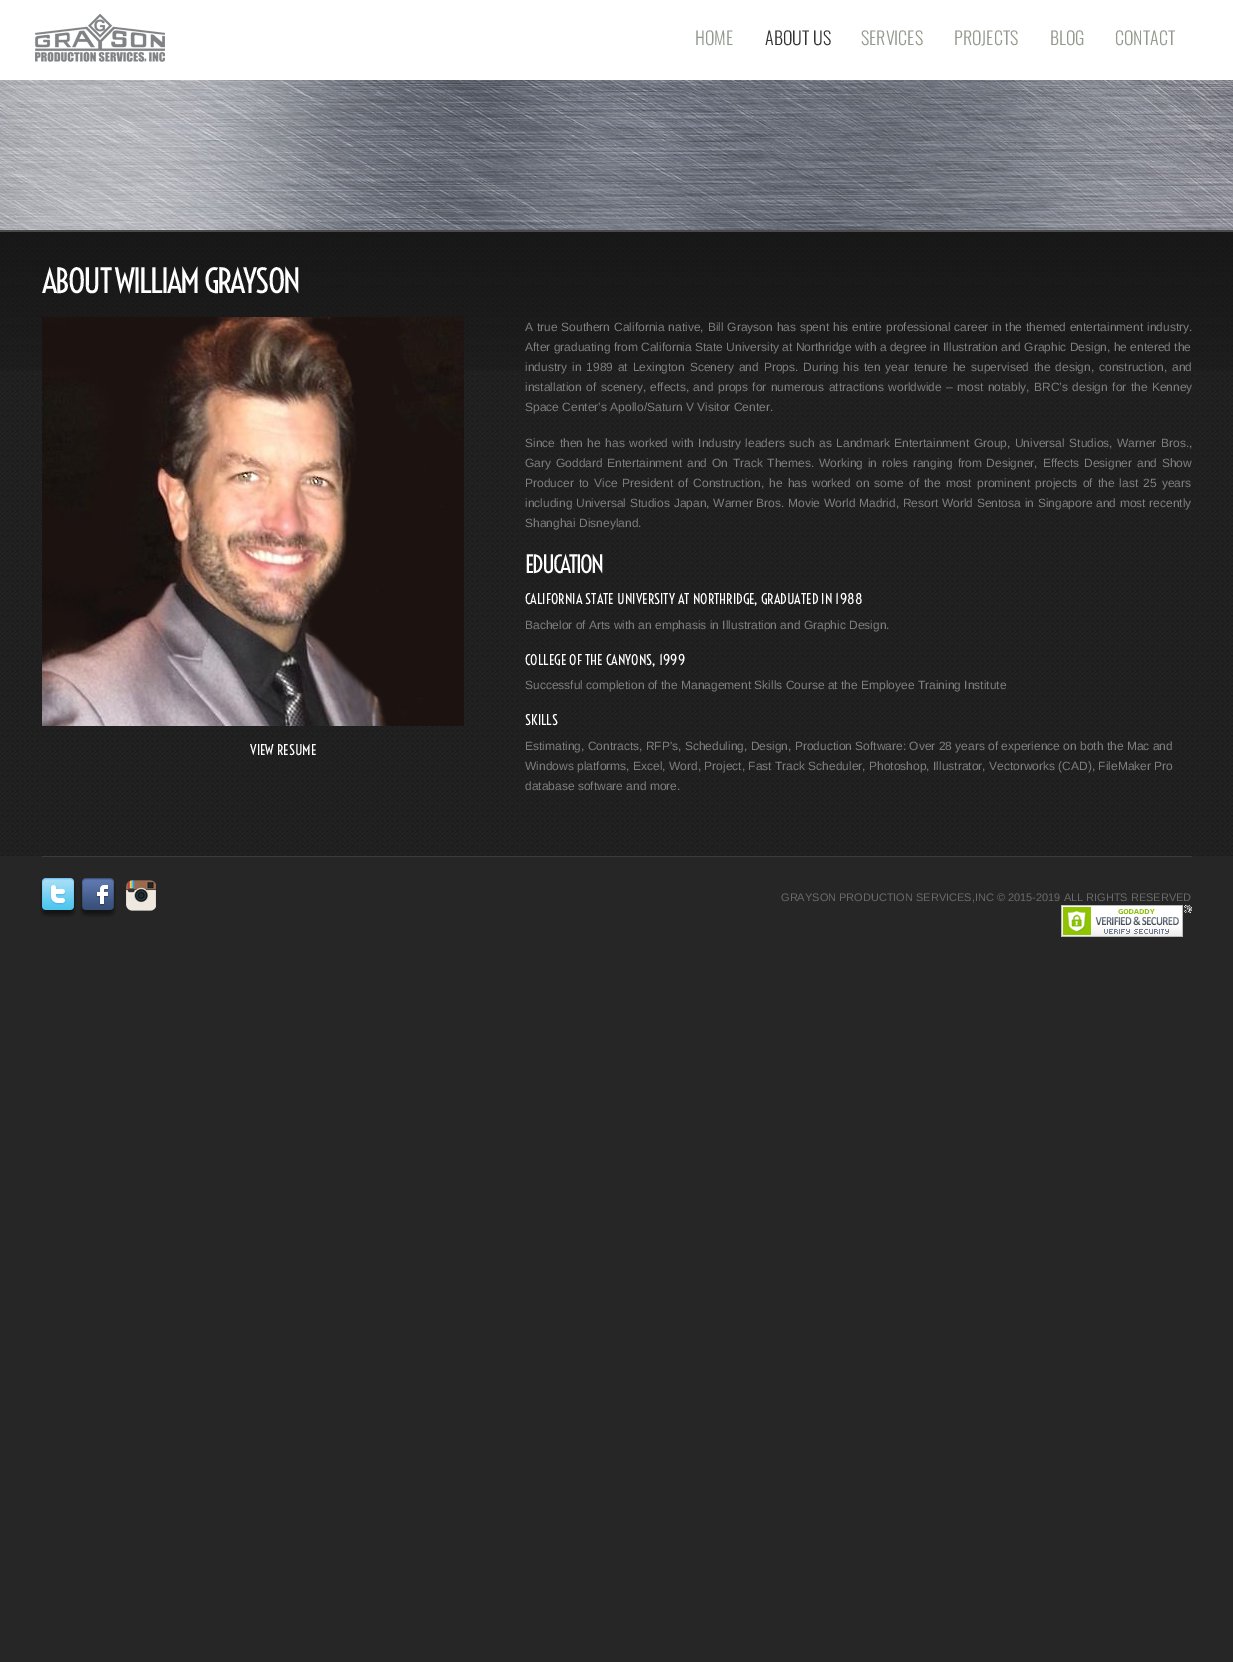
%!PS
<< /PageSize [1233 1662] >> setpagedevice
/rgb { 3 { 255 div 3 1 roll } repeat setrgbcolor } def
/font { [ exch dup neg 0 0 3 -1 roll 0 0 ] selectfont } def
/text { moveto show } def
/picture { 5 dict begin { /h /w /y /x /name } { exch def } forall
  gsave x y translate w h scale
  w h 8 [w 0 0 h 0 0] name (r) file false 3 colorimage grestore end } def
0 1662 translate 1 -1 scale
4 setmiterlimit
38 38 38 rgb
0 0 1233 1662 rectfill
(img_01.rgb) 0 230 1233 626 picture
255 255 255 rgb
0 0 1233 80 rectfill
(img_02.rgb) 35 14 130 48 picture
(img_03.rgb) 0 80 1233 150 picture
(img_04.rgb) 0 230 1233 140 picture
(img_05.rgb) 42 317 422 409 picture
60 60 60 rgb
42 856 1150 1 rectfill
(img_06.rgb) 40 878 36 39 picture
(img_07.rgb) 80 878 36 39 picture
(img_08.rgb) 126 880 30 31 picture
(img_09.rgb) 1061 905 131 32 picture
/Oswald-Light 18 font
147 154 140 rgb
(HOME) 695 45 text
51 51 51 rgb
(ABOUT US) 765 45 text
147 154 140 rgb
(SERVICES) 861 45 text
(PROJECTS) 954 45 text
(BLOG) 1050 45 text
(CONTACT) 1115 45 text
/Voltaire-Regular 33 font
255 255 255 rgb
42 293 moveto -2 0 (ABOUT WILLIAM GRAYSON) ashow
/Voltaire-Regular 14 font
(VIEW RESUME) 250 755 text
/LiberationSans-Regular 12 font
126 126 126 rgb
525 331 moveto 0.5 0 32 (A true Southern California native, Bill Grayson has spent his entire professional career in the themed entertainment industry.) widthshow
(After graduating from California State University at Northridge with a degree in Illustration and Graphic Design, he entered the) 525 351 text
525 371 moveto 1.6 0 32 (industry in 1989 at Lexington Scenery and Props. During his ten year tenure he supervised the design, construction, and) widthshow
525 391 moveto 1.1 0 32 (installation of scenery, effects, and props for numerous attractions worldwide – most notably, BRC’s design for the Kenney) widthshow
(Space Center’s Apollo/Saturn V Visitor Center.) 525 411 text
525 447 moveto 1.2 0 32 (Since then he has worked with Industry leaders such as Landmark Entertainment Group, Universal Studios, Warner Bros.,) widthshow
525 467 moveto 1.5 0 32 (Gary Goddard Entertainment and On Track Themes. Working in roles ranging from Designer, Effects Designer and Show) widthshow
525 487 moveto 1.8 0 32 (Producer to Vice President of Construction, he has worked on some of the most prominent projects of the last 25 years) widthshow
525 507 moveto 0.4 0 32 (including Universal Studios Japan, Warner Bros. Movie World Madrid, Resort World Sentosa in Singapore and most recently) widthshow
(Shanghai Disneyland.) 525 527 text
/Voltaire-Regular 24 font
255 255 255 rgb
525 573 moveto -2 0 (EDUCATION) ashow
/Voltaire-Regular 14 font
(CALIFORNIA STATE UNIVERSITY AT NORTHRIDGE, GRADUATED IN 1988) 525 604 text
/LiberationSans-Regular 12 font
126 126 126 rgb
(Bachelor of Arts with an emphasis in Illustration and Graphic Design.) 525 629 text
/Voltaire-Regular 14 font
255 255 255 rgb
(COLLEGE OF THE CANYONS, 1999) 525 665 text
/LiberationSans-Regular 12 font
126 126 126 rgb
(Successful completion of the Management Skills Course at the Employee Training Institute) 525 689 text
/Voltaire-Regular 14 font
255 255 255 rgb
(SKILLS) 525 725 text
/LiberationSans-Regular 12 font
126 126 126 rgb
(Estimating, Contracts, RFP's, Scheduling, Design, Production Software: Over 28 years of experience on both the Mac and) 525 750 text
(Windows platforms, Excel, Word, Project, Fast Track Scheduler, Photoshop, Illustrator, Vectorworks \(CAD\), FileMaker Pro) 525 770 text
(database software and more.) 525 790 text
/LiberationSans-Regular 11 font
106 106 106 rgb
(GRAYSON PRODUCTION SERVICES,INC © 2015-2019 ALL RIGHTS RESERVED) 781 901 text
showpage
